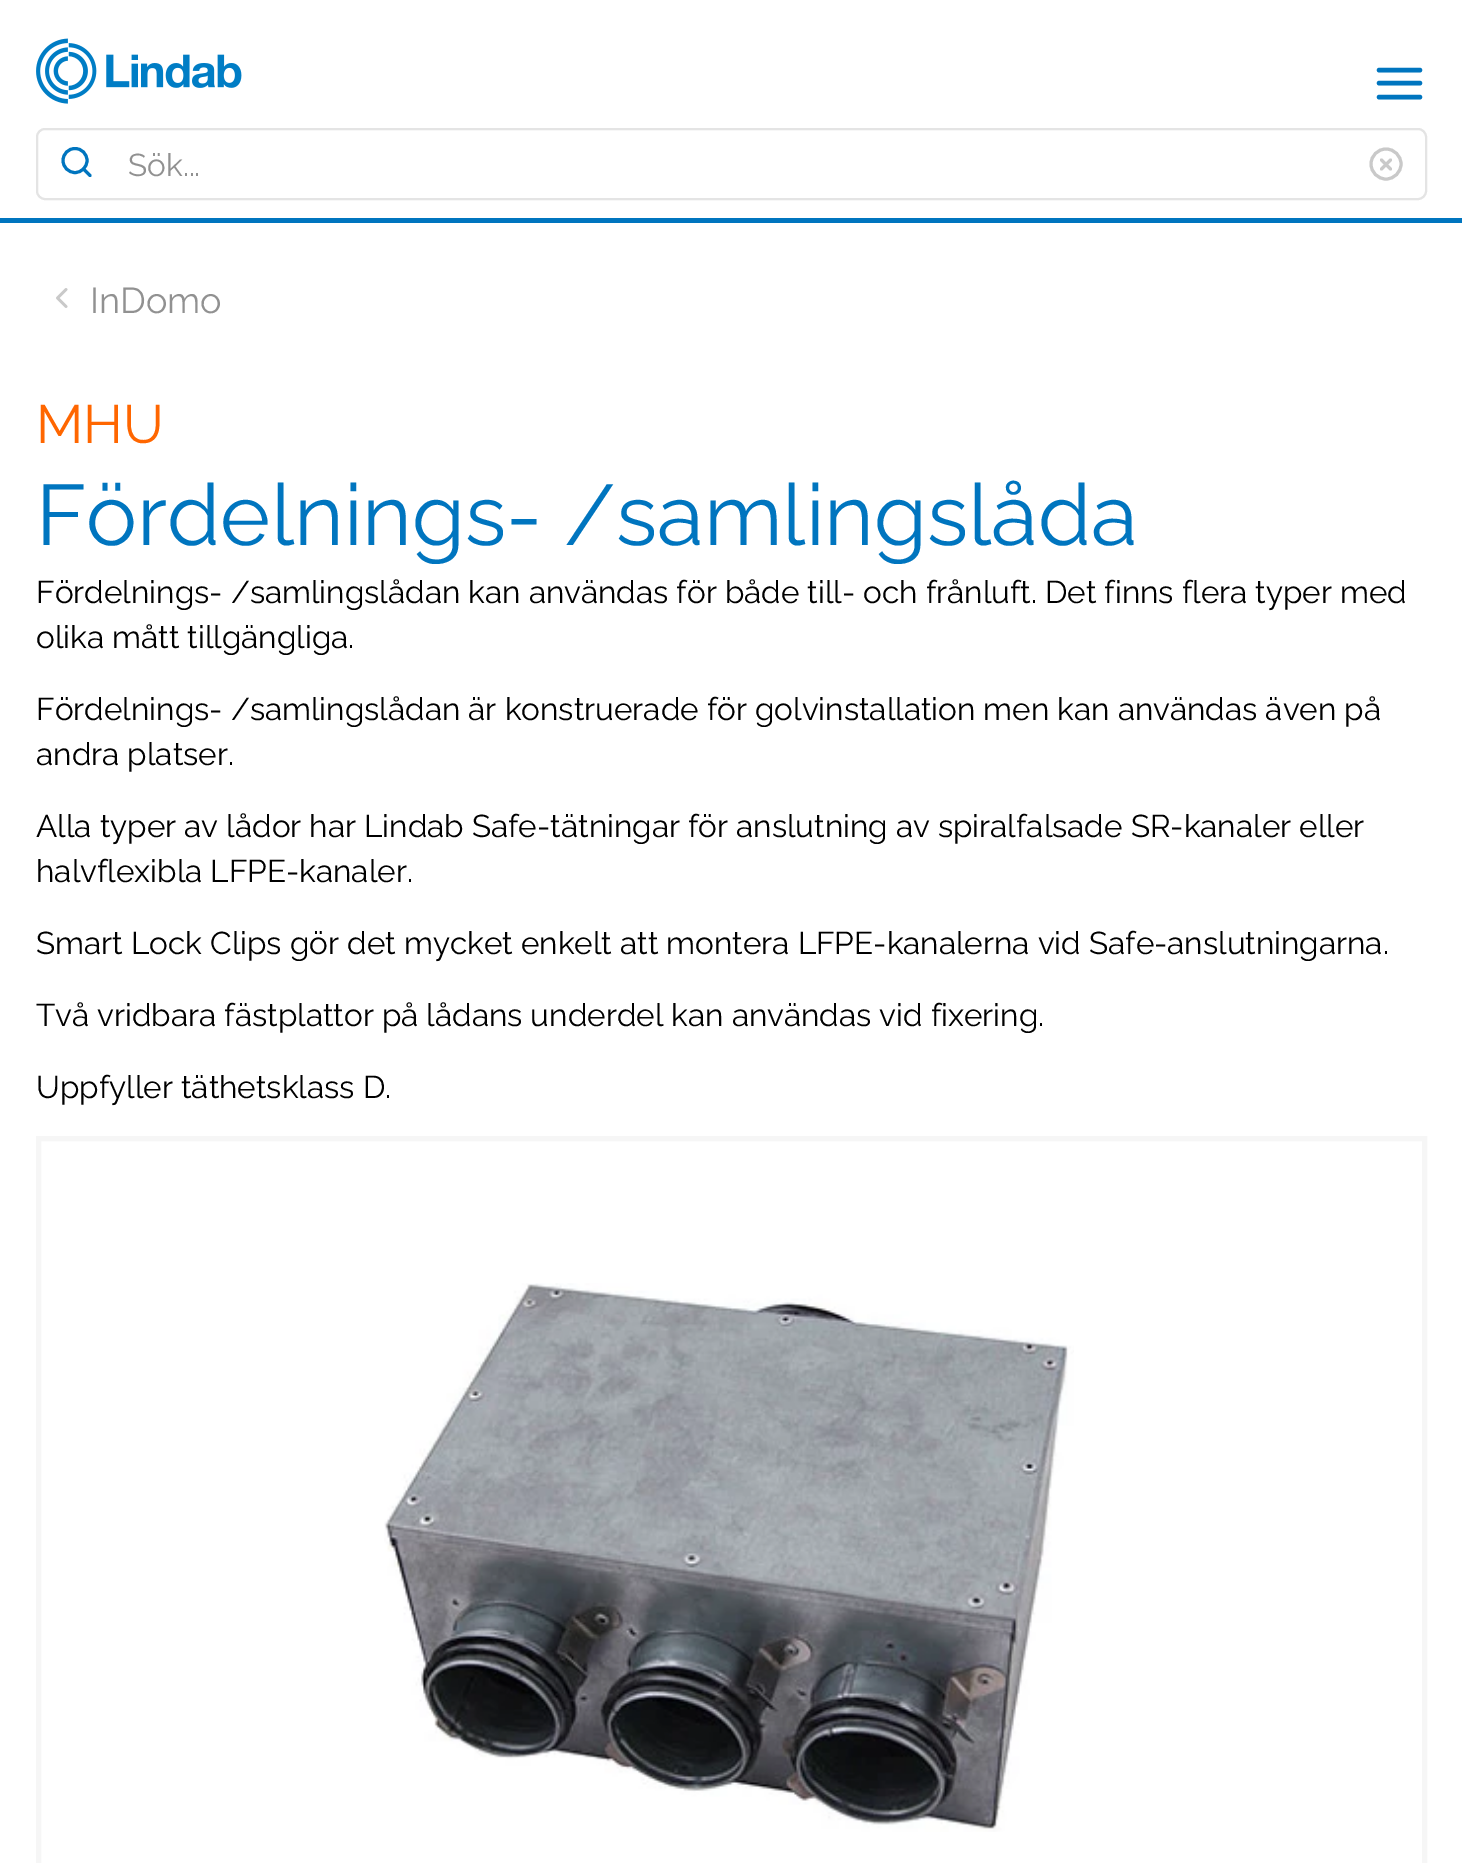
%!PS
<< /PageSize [1462 1863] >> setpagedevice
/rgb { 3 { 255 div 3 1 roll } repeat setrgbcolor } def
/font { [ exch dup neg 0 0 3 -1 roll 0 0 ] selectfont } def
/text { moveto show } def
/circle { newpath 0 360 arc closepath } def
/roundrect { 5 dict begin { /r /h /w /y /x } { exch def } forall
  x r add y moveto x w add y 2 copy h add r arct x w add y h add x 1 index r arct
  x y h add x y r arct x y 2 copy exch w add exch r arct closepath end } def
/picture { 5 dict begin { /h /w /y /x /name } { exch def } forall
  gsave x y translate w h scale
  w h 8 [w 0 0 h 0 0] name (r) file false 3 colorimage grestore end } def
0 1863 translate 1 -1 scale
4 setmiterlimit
255 255 255 rgb
0 0 1462 1863 rectfill
0 117 191 rgb
0 218 1462 5 rectfill
(img_01.rgb) 36 38 206 66 picture
4.5 setlinewidth
1 setlinecap
1 setlinejoin
1379 83 moveto 41 0 rlineto 1379 70 moveto 41 0 rlineto 1379 97 moveto 41 0 rlineto stroke
228 228 228 rgb
2 setlinewidth
0 setlinecap
0 setlinejoin
37 129 1389 70 8 roundrect stroke
0 117 191 rgb
3 setlinewidth
75 160.5 12 circle stroke
1 setlinecap
1 setlinejoin
90 175.5 moveto -6.5 -6.5 rlineto stroke
201 201 201 rgb
0 setlinecap
0 setlinejoin
1386 164 15 circle stroke
1 setlinecap
1 setlinejoin
1390.5 160 moveto -9 9 rlineto 1381.5 160 moveto 9 9 rlineto stroke
2.8 setlinewidth
66 306.5 moveto -8.5 -8.5 rlineto 8.5 -8.5 rlineto stroke
246 246 246 rgb
5 setlinewidth
0 setlinecap
0 setlinejoin
38.5 1138.5 1386 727 rectstroke
(img_02.rgb) 384 1283 690 549 picture
/Raleway-Thin 31.5 font
145 145 145 rgb
(Sök...) 128 176 text
/Raleway-Thin 36 font
(InDomo) 90 313 text
/Raleway-Thin 54 font
255 102 0 rgb
(MHU) 36 443 text
/Raleway-Thin 85.5 font
0 117 191 rgb
(Fördelnings- /samlingslåda) 36 545 text
/Raleway-Thin 31.5 font
0 0 0 rgb
(Fördelnings- /samlingslådan kan användas för både till- och frånluft. Det finns flera typer med) 36 603 text
(olika mått tillgängliga.) 36 648 text
(Fördelnings- /samlingslådan är konstruerade för golvinstallation men kan användas även på) 36 720 text
(andra platser.) 36 765 text
(Alla typer av lådor har Lindab Safe-tätningar för anslutning av spiralfalsade SR-kanaler eller) 36 837 text
(halvflexibla LFPE-kanaler.) 36 882 text
(Smart Lock Clips gör det mycket enkelt att montera LFPE-kanalerna vid Safe-anslutningarna.) 36 954 text
(Två vridbara fästplattor på lådans underdel kan användas vid fixering.) 36 1026 text
(Uppfyller täthetsklass D.) 36 1098 text
showpage
